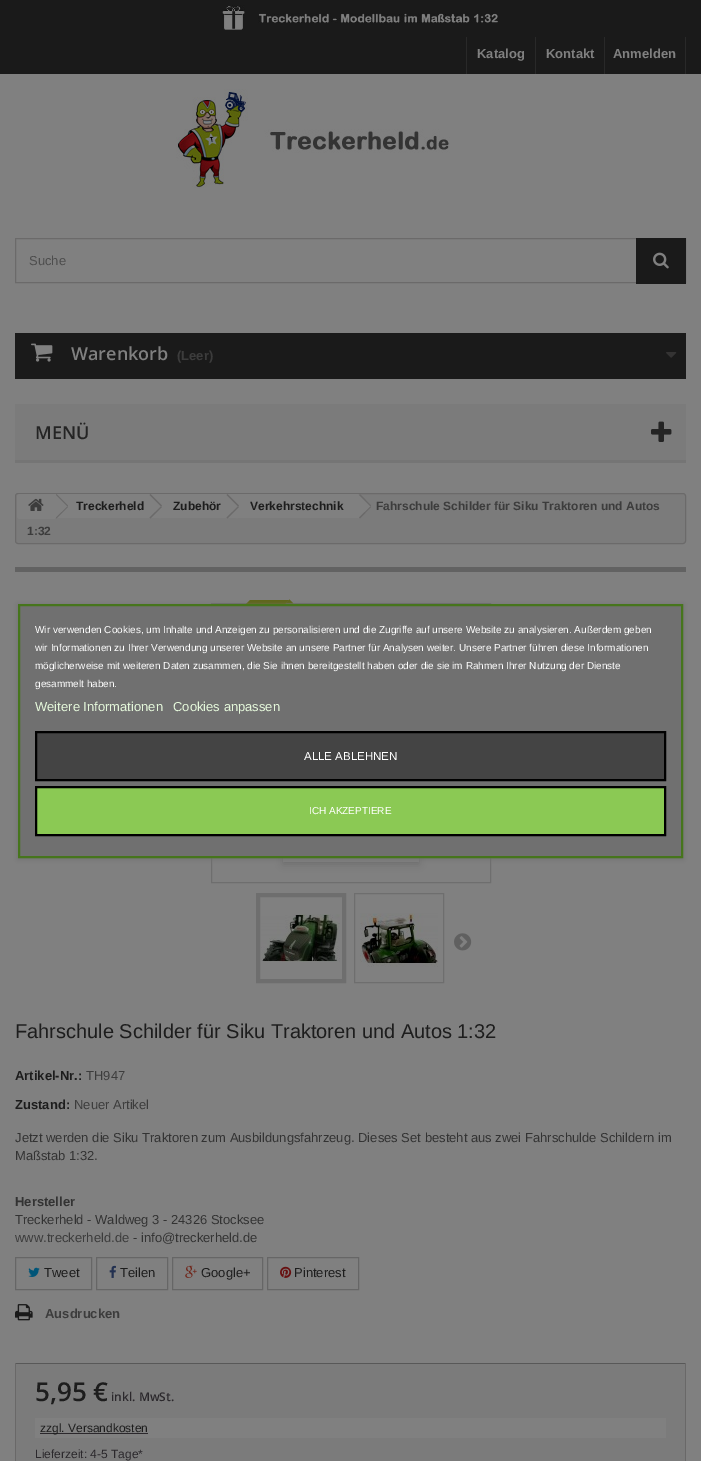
%!PS
<< /PageSize [701 1461] /PageUsesTransparency true >> setpagedevice
/rgb { 3 { 255 div 3 1 roll } repeat setrgbcolor } def
/font { [ exch dup neg 0 0 3 -1 roll 0 0 ] selectfont } def
/text { moveto show } def
/alpha { dup .setfillconstantalpha .setstrokeconstantalpha } def
/roundrect { 5 dict begin { /r /h /w /y /x } { exch def } forall
  x r add y moveto x w add y 2 copy h add r arct x w add y h add x 1 index r arct
  x y h add x y r arct x y 2 copy exch w add exch r arct closepath end } def
/shadow { 12 dict begin { /a /b /q /h /w /y /x } { exch def } forall gsave /was 0 def
  9 -2 -9 { dup b mul 4 div /e exch def 1 sub .425 mul 2.718 exch exp 1 add a .99 .min exch div /now exch def
    1 1 now sub 1 was sub div sub alpha /was now def
    w h .min e 2 mul add 0 gt { x e sub y e sub w e 2 mul add h e 2 mul add
      q e add b .6 mul add w h .min 2 div e add .min 0 .max roundrect fill } if } for grestore end } def
/picture { 5 dict begin { /h /w /y /x /name } { exch def } forall
  gsave x y translate w h scale
  w h 8 [w 0 0 h 0 0] name (r) file false 3 colorimage grestore end } def
0 .pushpdf14devicefilter
0 1461 translate 1 -1 scale
4 setmiterlimit
128 128 128 rgb
0 0 701 1461 rectfill
26 26 26 rgb
0 0 701 74 rectfill
(img_01.rgb) 222 5 276 25 picture
41 41 41 rgb
466 37 1 37 rectfill
535 37 1 37 rectfill
685 37 1 37 rectfill
604 37 1 37 rectfill
(img_02.rgb) 176 89 274 99 picture
107 106 106 rgb
15.5 238.5 670 44 rectstroke
26 26 26 rgb
636 238 50 46 rectfill
(img_03.rgb) 653 252 16 17 picture
15 333 671 46 rectfill
(img_04.rgb) 31 343 22 19 picture
(img_05.rgb) 666 352 11 6 picture
123 123 123 rgb
15 404 671 56 rectfill
117 117 117 rgb
15 460 671 3 rectfill
(img_06.rgb) 651 421 21 21 picture
123 123 123 rgb
15.5 493.5 670 50 2.5 roundrect gsave fill grestore
107 106 106 rgb
stroke
128 128 128 rgb
20 494 moveto 35 0 rlineto 0 25 rlineto -35 0 rlineto -1.5 0 -3 -1.5 -3 -3 rcurveto 0 -19 rlineto 0 -1.5 1.5 -3 3 -3 rcurveto closepath fill
(img_07.rgb) 28 498 16 13 picture
55 494 96 24 rectfill
107 106 106 rgb
56.5 494 moveto 11.5 11.5 rlineto -0.5 1 rlineto -11.5 -11.5 rlineto closepath fill
67.5 506.5 moveto 0.5 0.5 rlineto -11.5 11.5 rlineto -0.5 -1 rlineto closepath fill
128 128 128 rgb
161 495 moveto 10 10 rlineto 1 0.5 1 2 0 2.5 rcurveto -10 10 rlineto -0.5 1 -2 1 -2.5 0 rcurveto -10 -10 rlineto -1 -0.5 -1 -2 0 -2.5 rcurveto 10 -10 rlineto 0.5 -1 2 -1 2.5 0 rcurveto closepath fill
151 494 77 24 rectfill
107 106 106 rgb
150.5 494 moveto 11.5 11.5 rlineto -1 1 rlineto -11.5 -11.5 rlineto closepath fill
161 506.5 moveto 1 0.5 rlineto -11.5 11.5 rlineto -1 -1 rlineto closepath fill
128 128 128 rgb
238 495 moveto 10 10 rlineto 1 0.5 1 2 0 2.5 rcurveto -10 10 rlineto -0.5 1 -2 1 -2.5 0 rcurveto -10 -10 rlineto -1 -0.5 -1 -2 0 -2.5 rcurveto 10 -10 rlineto 0.5 -1 2 -1 2.5 0 rcurveto closepath fill
228 494 130 24 rectfill
107 106 106 rgb
227.5 494 moveto 11.5 11.5 rlineto -1 1 rlineto -11.5 -11.5 rlineto closepath fill
238 506.5 moveto 1 0.5 rlineto -11.5 11.5 rlineto -1 -1 rlineto closepath fill
128 128 128 rgb
360.5 495 moveto 10 10 rlineto 0.5 0.5 0.5 2 0 2.5 rcurveto -10 10 rlineto -0.5 1 -2 1 -3 0 rcurveto -9.5 -10 rlineto -1 -0.5 -1 -2 0 -2.5 rcurveto 9.5 -10 rlineto 1 -1 2.5 -1 3 0 rcurveto closepath fill
107 106 106 rgb
360 494 moveto 11 11.5 rlineto -0.5 1 rlineto -11.5 -11.5 rlineto closepath fill
370.5 506.5 moveto 0.5 0.5 rlineto -11 11.5 rlineto -1 -1 rlineto closepath fill
98 98 98 rgb
15 567 671 5 rectfill
110 110 110 rgb
211.5 603.5 279 279 rectstroke
gsave
208 600 85 85 rectclip
94 102 23 rgb
184 666 moveto 92 -92 rlineto 19 20 rlineto -92 92 rlineto closepath fill
grestore
94 102 23 rgb
293.5 603.5 moveto -8 0 rlineto 4 -4 rlineto closepath fill
gsave
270 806 moveto 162 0 rlineto 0 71 rlineto -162 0 rlineto closepath 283 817 moveto 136 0 rlineto 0 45 rlineto -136 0 rlineto closepath eoclip newpath
0 0 0 rgb
283 819 136 45 0 4 0.16 shadow
grestore
110 110 110 rgb
256.5 893.5 89 89 rectstroke
3 setlinewidth
258.5 895.5 85 85 rectstroke
(img_08.rgb) 261 914 79 48 picture
1 setlinewidth
354.5 893.5 89 89 rectstroke
(img_09.rgb) 360 913 78 54 picture
(img_10.rgb) 454 933 18 18 picture
102 102 102 rgb
15.5 1257.5 76 32 rectstroke
(img_11.rgb) 28 1267 12 10 picture
96.5 1257.5 71 32 rectstroke
(img_12.rgb) 109 1265 7 13 picture
172.5 1257.5 90 32 rectstroke
(img_13.rgb) 185 1265 12 13 picture
267.5 1257.5 91 32 rectstroke
(img_14.rgb) 280 1266 12 12 picture
(img_15.rgb) 15 1304 18 17 picture
123 123 123 rgb
16 1364 669 97 rectfill
88 88 88 rgb
15 1363 671 1 rectfill
105 104 104 rgb
685 1363 1 98 rectfill
15 1363 1 98 rectfill
128 128 128 rgb
35 1418 631 20 rectfill
43 40 44 rgb
40 1433 108 1 rectfill
112 112 112 rgb
18 605 665 254 0 2.5 1 shadow
19 605 moveto 663 0 rlineto 0 252 rlineto -663 0 rlineto closepath gsave fill grestore
70 117 28 rgb
2 setlinewidth
stroke
68 68 68 rgb
36 732 moveto 629 0 rlineto 0 48 rlineto -629 0 rlineto closepath gsave fill grestore
0 0 0 rgb
stroke
139 201 84 rgb
36 787 moveto 629 0 rlineto 0 48 rlineto -629 0 rlineto closepath gsave fill grestore
0 0 0 rgb
stroke
/LiberationSans-Bold 13 font
128 128 128 rgb
(Katalog) 477 58 text
(Kontakt) 546 58 text
(Anmelden) 613 58 text
/LiberationSans-Regular 13 font
77 77 77 rgb
(Suche) 29 265 text
/OpenSans-SemiBold 18 font
128 128 128 rgb
(Warenkorb) 71 360 text
/LiberationSans-Bold 13 font
60 60 60 rgb
(\(Leer\)) 177 360 text
/OpenSans-SemiBold 18 font
36 36 36 rgb
(MENÜ) 35 439 text
/LiberationSans-Bold 12 font
29 29 29 rgb
(Treckerheld) 76 510 text
(Zubehör) 173 510 text
(Verkehrstechnik) 250 510 text
60 60 60 rgb
(Fahrschule Schilder für Siku Traktoren und Autos) 376 510 text
(1:32) 27 535 text
/LiberationSans-Regular 20 font
29 29 29 rgb
(Fahrschule Schilder für Siku Traktoren und Autos 1:32) 15 1038 text
/LiberationSans-Bold 13 font
(Artikel-Nr.:) 15 1080 text
/LiberationSans-Regular 13 font
60 60 60 rgb
(TH947) 86 1080 text
/LiberationSans-Bold 13 font
29 29 29 rgb
(Zustand:) 15 1109 text
/LiberationSans-Regular 13 font
60 60 60 rgb
(Neuer Artikel) 74 1109 text
51 51 51 rgb
(Jetzt werden die Siku Traktoren zum Ausbildungsfahrzeug. Dieses Set besteht aus zwei Fahrschulde Schildern im) 15 1142 text
(Maßstab 1:32.) 15 1160 text
/LiberationSans-Bold 13 font
(Hersteller) 15 1206 text
/LiberationSans-Regular 13 font
(Treckerheld - Waldweg 3 - 24326 Stocksee) 15 1224 text
60 60 60 rgb
(www.treckerheld.de) 15 1242 text
51 51 51 rgb
(- info@treckerheld.de) 133 1242 text
29 29 29 rgb
(Tweet) 44 1277 text
(Teilen) 120 1277 text
(Google+) 201 1277 text
(Pinterest) 294 1277 text
/LiberationSans-Bold 13 font
60 60 60 rgb
(Ausdrucken) 45 1318 text
/OpenSans-SemiBold 26 font
29 29 29 rgb
(5,95 €) 35 1401 text
/OpenSans-SemiBold 12 font
43 40 44 rgb
(inkl. MwSt.) 111 1401 text
/LiberationSans-Regular 12 font
29 29 29 rgb
(zzgl. Versandkosten) 40 1432 text
43 40 44 rgb
(Lieferzeit: 4-5 Tage*) 35 1458 text
/LiberationSans-Regular 10 font
255 255 255 rgb
(Wir verwenden Cookies, um Inhalte und Anzeigen zu personalisieren und die Zugriffe auf unsere Website zu analysieren. Außerdem geben) 35 633 text
(wir Informationen zu Ihrer Verwendung unserer Website an unsere Partner für Analysen weiter. Unsere Partner führen diese Informationen) 35 651 text
(möglicherweise mit weiteren Daten zusammen, die Sie ihnen bereitgestellt haben oder die sie im Rahmen Ihrer Nutzung der Dienste) 35 669 text
(gesammelt haben.) 35 687 text
/LiberationSans-Regular 13 font
228 247 218 rgb
(Weitere Informationen) 35 711 text
(Cookies anpassen) 173 711 text
/LiberationSans-Regular 11.5 font
255 255 255 rgb
(ALLE ABLEHNEN) 304 760 text
/LiberationSans-Regular 10 font
(ICH AKZEPTIERE) 309 814 text
.poppdf14devicefilter showpage
